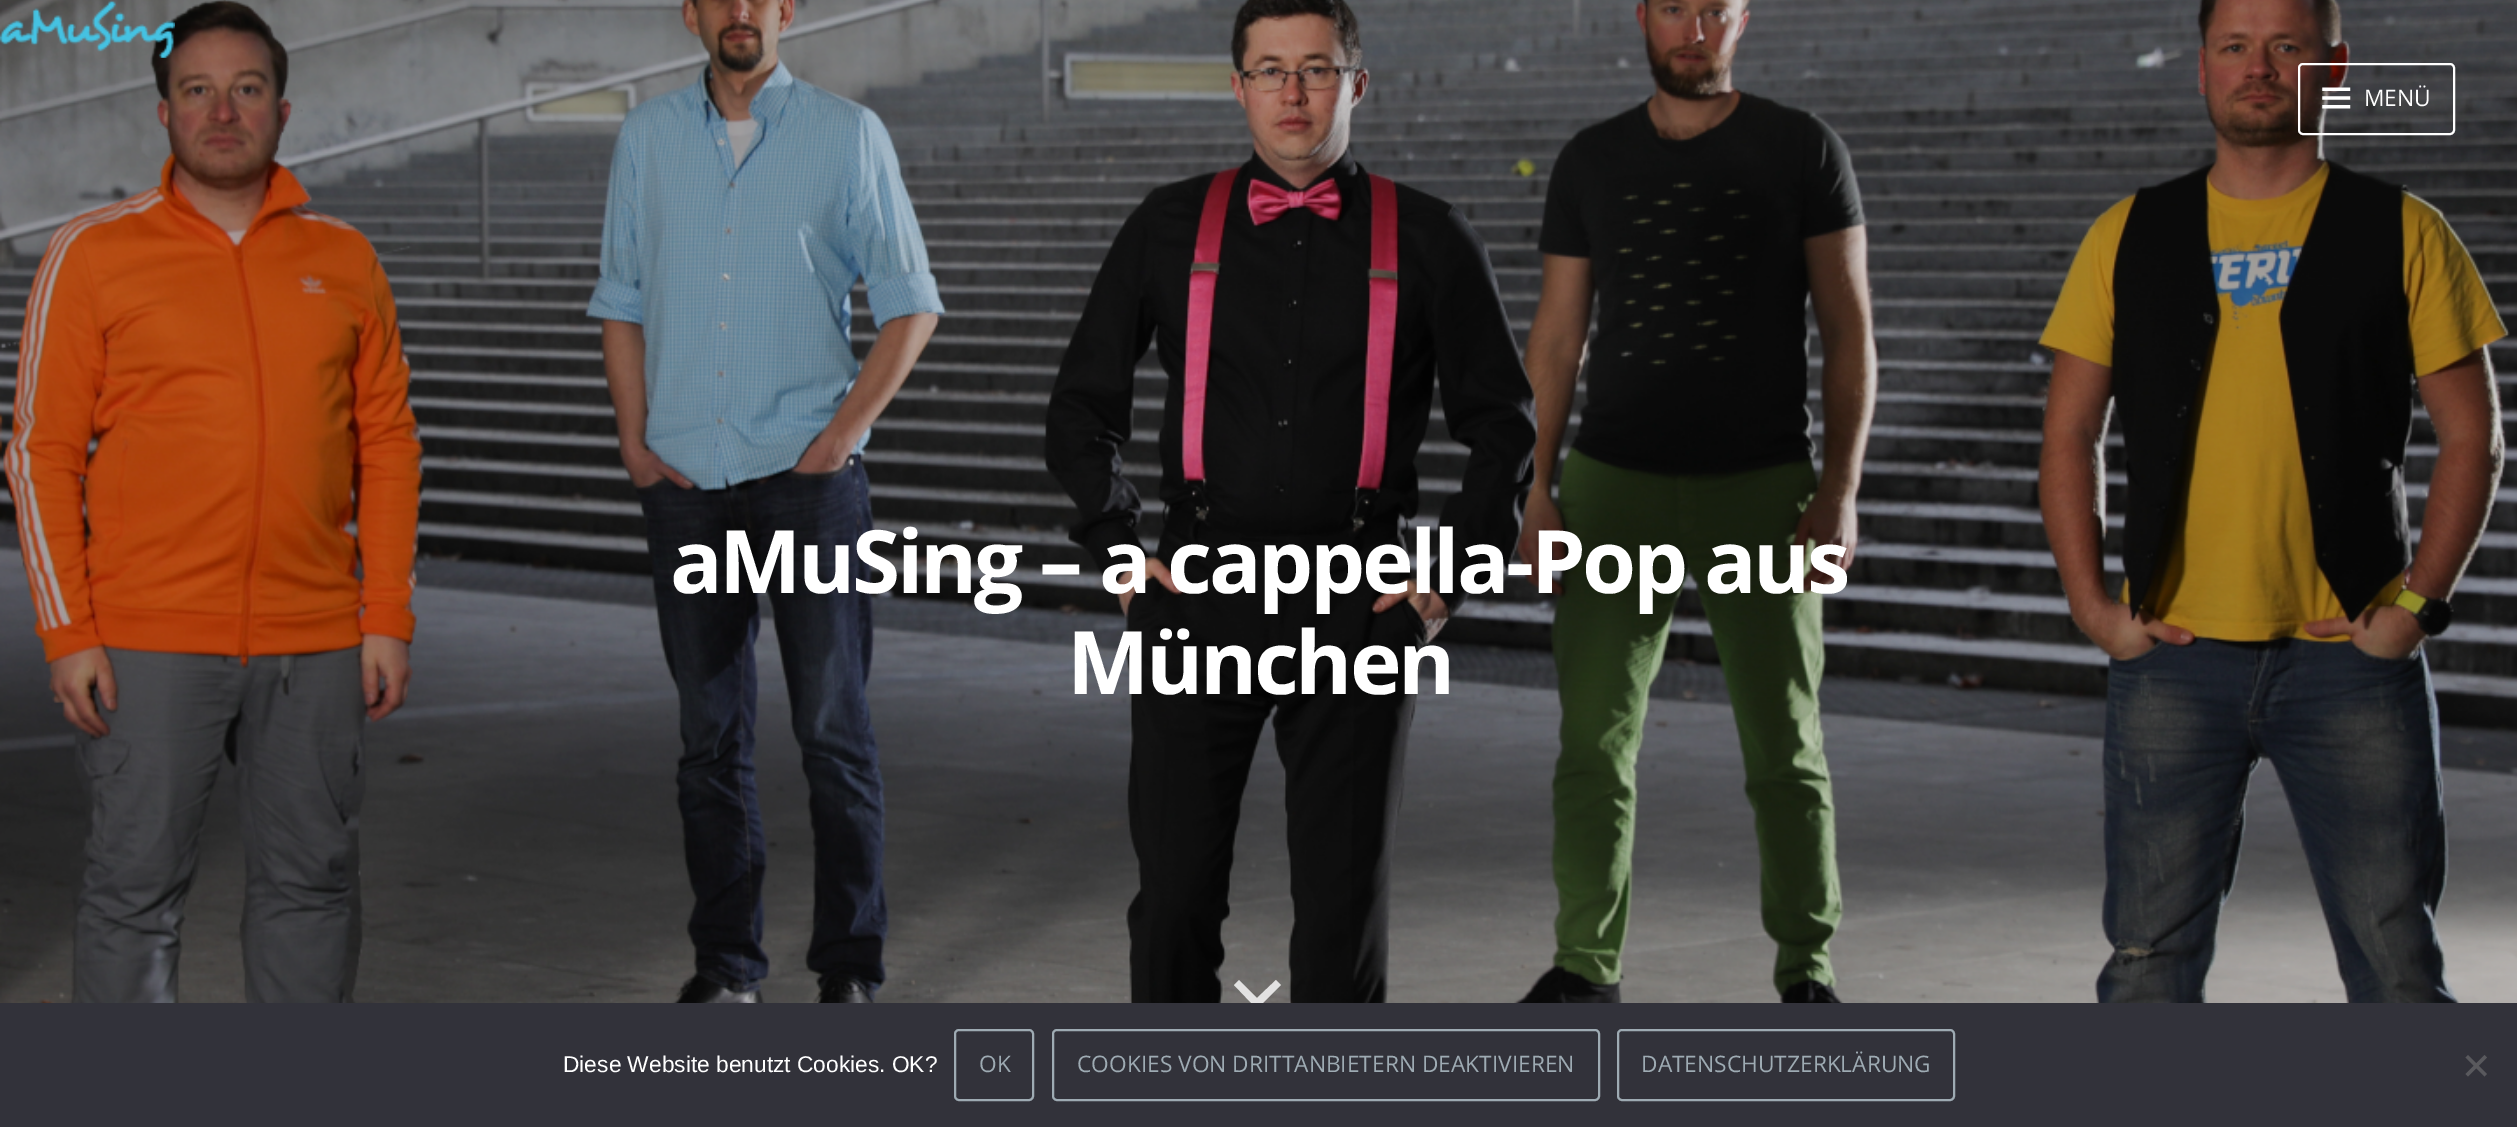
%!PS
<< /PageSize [2517 1127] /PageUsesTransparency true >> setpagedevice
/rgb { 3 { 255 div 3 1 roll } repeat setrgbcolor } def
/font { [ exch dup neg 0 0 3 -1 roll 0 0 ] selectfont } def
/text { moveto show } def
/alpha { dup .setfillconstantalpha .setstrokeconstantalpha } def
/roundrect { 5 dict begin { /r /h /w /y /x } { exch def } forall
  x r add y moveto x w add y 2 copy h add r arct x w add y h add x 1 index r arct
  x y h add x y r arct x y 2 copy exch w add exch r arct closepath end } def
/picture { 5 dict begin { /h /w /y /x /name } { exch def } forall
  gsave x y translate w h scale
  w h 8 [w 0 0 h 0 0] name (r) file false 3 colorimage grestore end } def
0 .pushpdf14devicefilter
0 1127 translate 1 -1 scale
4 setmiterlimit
255 255 255 rgb
0 0 2517 1127 rectfill
(img_01.rgb) 0 0 2517 1003 picture
(img_02.rgb) 0 0 175 58 picture
2 setlinewidth
2299 64 155 70 4 roundrect stroke
(img_03.rgb) 2322 87 29 22 picture
0.8 alpha
1276 980 moveto 5 5 rlineto -24 24 rlineto -23 -24 rlineto 5 -5 rlineto 18 18 rlineto closepath fill
1 alpha
50 50 58 rgb
0 1003 2517 124 rectfill
158 171 179 rgb
955 1030 78 70 4 roundrect stroke
1053 1030 546 70 4 roundrect stroke
1618 1030 336 70 4 roundrect stroke
89 89 93 rgb
2484.5 1055 moveto 2.5 2.5 rlineto -19 19 rlineto -2.5 -2.5 rlineto closepath fill
2465.5 1057.5 moveto 2.5 -2.5 rlineto 19 19 rlineto -2.5 2.5 rlineto closepath fill
/OpenSans-Regular 22.75 font
255 255 255 rgb
(MENÜ) 2364 106 text
/OpenSans-Bold 87.5 font
670 593 moveto -3.5 0 (aMuSing – a cappella-Pop aus) ashow
1067 694 moveto -3.5 0 (München) ashow
/LiberationSans-Regular 22.75 font
(Diese Website benutzt Cookies. OK?) 563 1072 text
/OpenSans-Regular 22.75 font
158 171 179 rgb
(OK) 979 1072 text
(COOKIES VON DRITTANBIETERN DEAKTIVIEREN) 1077 1072 text
(DATENSCHUTZERKLÄRUNG) 1641 1072 text
.poppdf14devicefilter showpage
